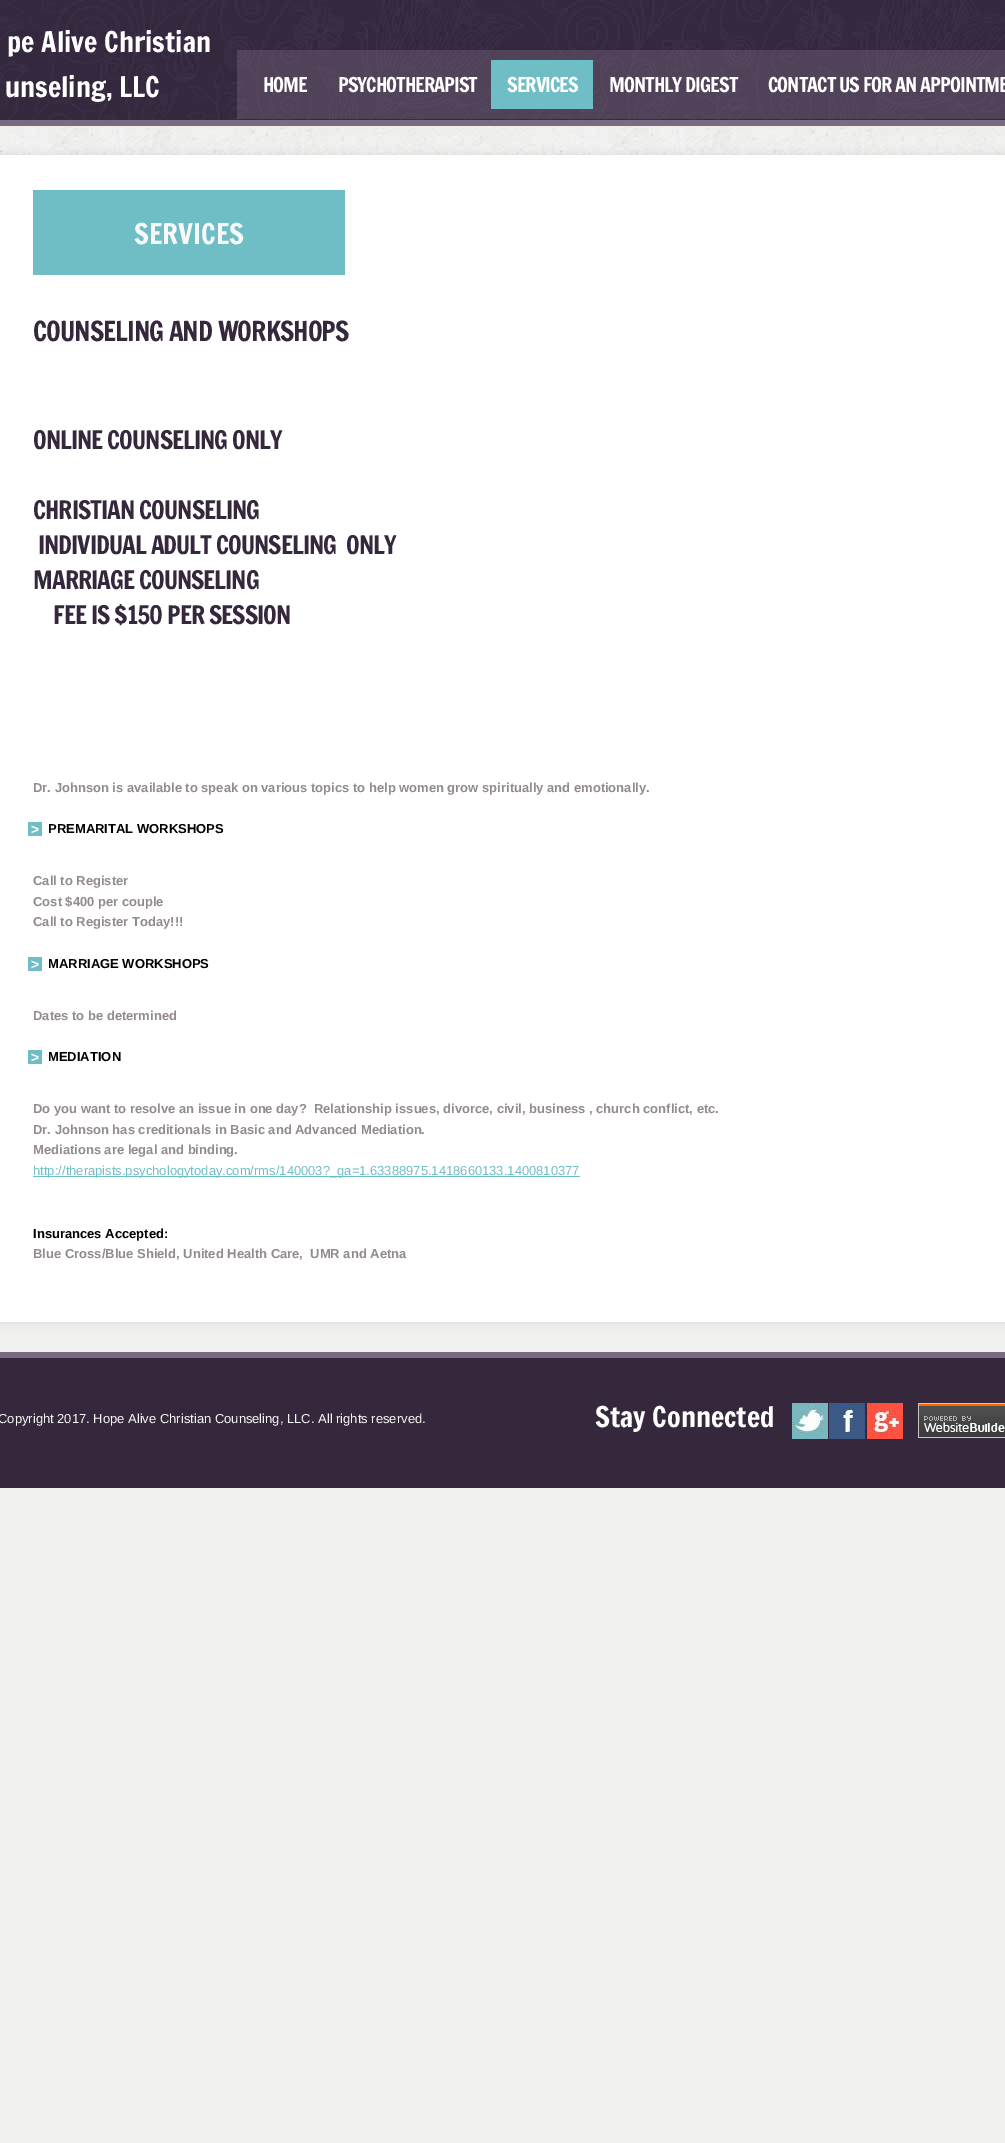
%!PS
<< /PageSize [1005 2143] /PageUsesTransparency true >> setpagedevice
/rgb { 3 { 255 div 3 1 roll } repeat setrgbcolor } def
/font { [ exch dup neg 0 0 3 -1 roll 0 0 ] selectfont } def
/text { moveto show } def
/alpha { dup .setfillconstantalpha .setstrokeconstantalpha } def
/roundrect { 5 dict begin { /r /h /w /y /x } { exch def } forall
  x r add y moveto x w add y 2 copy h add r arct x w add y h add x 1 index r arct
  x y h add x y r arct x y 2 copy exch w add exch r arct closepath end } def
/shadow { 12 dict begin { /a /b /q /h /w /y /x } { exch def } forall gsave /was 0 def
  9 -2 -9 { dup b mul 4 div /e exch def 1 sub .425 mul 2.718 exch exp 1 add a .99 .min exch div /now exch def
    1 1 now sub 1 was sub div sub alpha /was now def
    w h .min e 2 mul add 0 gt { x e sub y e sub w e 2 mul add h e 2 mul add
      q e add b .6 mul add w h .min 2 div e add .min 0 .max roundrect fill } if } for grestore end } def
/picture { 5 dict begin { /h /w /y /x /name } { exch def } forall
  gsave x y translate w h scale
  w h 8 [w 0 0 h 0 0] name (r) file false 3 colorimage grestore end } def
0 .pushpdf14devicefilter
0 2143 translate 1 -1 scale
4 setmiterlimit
240 240 238 rgb
0 0 1005 2143 rectfill
(img_01.rgb) 0 0 1005 155 picture
0 0 0 rgb
0 155 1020 1167 0 5 0.1 shadow
255 255 255 rgb
0 155 1005 1167 rectfill
0.4 alpha
121 106 128 rgb
237 50 768 69 rectfill
1 alpha
111 190 198 rgb
491 60 102 49 rectfill
33 190 312 85 rectfill
28 822 14 14 rectfill
28 957 14 14 rectfill
28 1050 14 14 rectfill
33 1176 547 1 rectfill
53 40 60 rgb
0 1358 1005 130 rectfill
121 106 128 rgb
0 1352 1005 6 rectfill
(img_02.rgb) 792 1403 36 36 picture
(img_03.rgb) 829 1403 36 36 picture
(img_04.rgb) 867 1403 36 36 picture
(img_05.rgb) 918 1403 87 35 picture
/FrancoisOne-Regular 28 font
255 255 255 rgb
(pe Alive Christian) 7 52 text
(unseling, LLC) 5 97 text
/FrancoisOne-Regular 20 font
263 92 moveto -1 0 (HOME) ashow
338 92 moveto -1 0 (PSYCHOTHERAPIST) ashow
507 92 moveto -1 0 (SERVICES) ashow
609 92 moveto -1 0 (MONTHLY DIGEST) ashow
768 92 moveto -1 0 (CONTACT US FOR AN APPOINTME) ashow
/FrancoisOne-Regular 28 font
248 248 248 rgb
(SERVICES) 134 244 text
/FrancoisOne-Regular 27 font
53 40 60 rgb
33 341 moveto -1 0 (COUNSELING AND WORKSHOPS) ashow
/FrancoisOne-Regular 25 font
33 449 moveto -1 0 (ONLINE COUNSELING ONLY) ashow
33 519 moveto -1 0 (CHRISTIAN COUNSELING) ashow
38 554 moveto -1 0 (INDIVIDUAL ADULT COUNSELING  ONLY) ashow
33 589 moveto -1 0 (MARRIAGE COUNSELING) ashow
53 624 moveto -1 0 (FEE IS $150 PER SESSION) ashow
/LiberationSans-Bold 13 font
147 139 139 rgb
(Dr. Johnson is available to speak on various topics to help women grow spiritually and emotionally.) 33 792 text
/LiberationSans-Bold 14 font
255 255 255 rgb
31 834 moveto -1 0 (>) ashow
/LiberationSans-Bold 13 font
0 0 0 rgb
(PREMARITAL WORKSHOPS) 48 833 text
147 139 139 rgb
(Call to Register) 33 885 text
(Cost $400 per couple) 33 906 text
(Call to Register Today!!!) 33 926 text
/LiberationSans-Bold 14 font
255 255 255 rgb
31 969 moveto -1 0 (>) ashow
/LiberationSans-Bold 13 font
0 0 0 rgb
(MARRIAGE WORKSHOPS) 48 968 text
147 139 139 rgb
(Dates to be determined) 33 1020 text
/LiberationSans-Bold 14 font
255 255 255 rgb
31 1062 moveto -1 0 (>) ashow
/LiberationSans-Bold 13 font
0 0 0 rgb
(MEDIATION) 48 1061 text
147 139 139 rgb
(Do you want to resolve an issue in one day?  Relationship issues, divorce, civil, business , church conflict, etc.) 33 1113 text
(Dr. Johnson has creditionals in Basic and Advanced Mediation.) 33 1134 text
(Mediations are legal and binding.) 33 1154 text
/LiberationSans-Regular 13 font
111 190 198 rgb
(http://therapists.psychologytoday.com/rms/140003?_ga=1.63388975.1418660133.1400810377) 33 1175 text
/LiberationSans-Bold 13 font
0 0 0 rgb
(Insurances Accepted:) 33 1238 text
147 139 139 rgb
(Blue Cross/Blue Shield, United Health Care,  UMR and Aetna) 33 1258 text
/LiberationSans-Regular 13 font
248 248 248 rgb
(Copyright 2017. Hope Alive Christian Counseling, LLC. All rights reserved.) -2 1423 text
/FrancoisOne-Regular 28 font
255 255 255 rgb
(Stay Connected) 595 1427 text
.poppdf14devicefilter showpage
